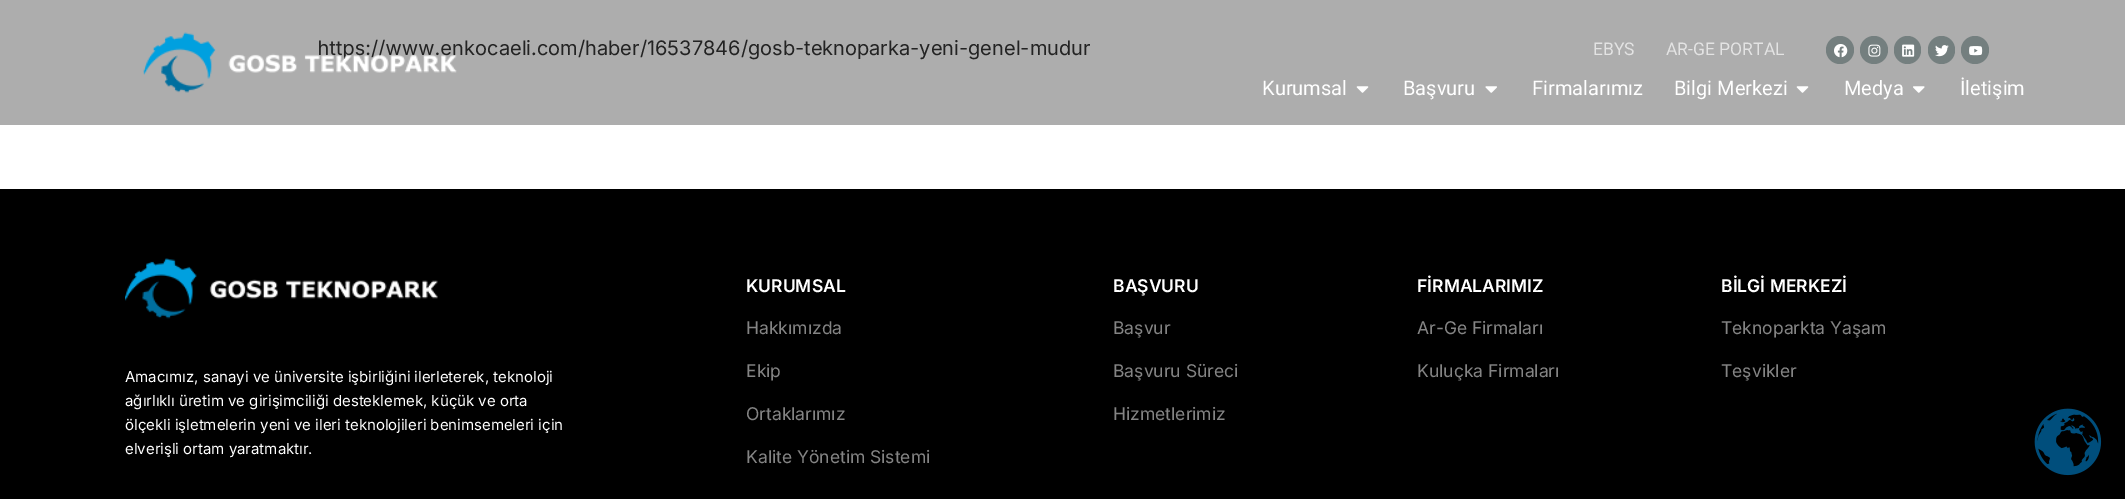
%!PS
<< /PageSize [2125 499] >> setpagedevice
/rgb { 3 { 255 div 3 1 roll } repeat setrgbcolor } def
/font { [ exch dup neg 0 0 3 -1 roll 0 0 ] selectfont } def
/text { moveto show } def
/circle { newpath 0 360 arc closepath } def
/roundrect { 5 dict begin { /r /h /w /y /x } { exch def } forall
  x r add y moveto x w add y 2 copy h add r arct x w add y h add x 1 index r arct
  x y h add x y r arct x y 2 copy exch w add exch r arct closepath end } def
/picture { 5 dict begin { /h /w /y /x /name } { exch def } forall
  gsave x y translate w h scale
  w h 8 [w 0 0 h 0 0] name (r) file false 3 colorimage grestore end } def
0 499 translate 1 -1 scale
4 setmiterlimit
255 255 255 rgb
0 0 2125 499 rectfill
173 173 173 rgb
0 0 2125 125 rectfill
116 127 127 rgb
1840 50 14 circle fill
(img_02.rgb) 1834 44 14 14 picture
1874 50 14 circle fill
(img_03.rgb) 1868 44 13 13 picture
1894 36 27 28 13.5 roundrect fill
(img_04.rgb) 1902 44 13 13 picture
1928 36 27 28 13.5 roundrect fill
(img_05.rgb) 1935 45 14 12 picture
1975 50 14 circle fill
(img_06.rgb) 1969 46 14 10 picture
(img_07.rgb) 1356 86 13 7 picture
(img_08.rgb) 1485 86 12 7 picture
(img_07.rgb) 1796 86 13 7 picture
(img_09.rgb) 1913 86 12 7 picture
0 0 0 rgb
0 189 2125 310 rectfill
(img_10.rgb) 125 258 313 61 picture
(img_11.rgb) 2034 408 68 68 picture
/Inter-Regular 20 font
35 35 35 rgb
(https://www.enkocaeli.com/haber/16537846/gosb-teknoparka-yeni-genel-mudur) 318 55 text
(img_01.rgb) 143 32 314 61 picture
/Roboto-Regular 17.5 font
227 227 227 rgb
(EBYS) 1593 55 text
(AR-GE PORTAL) 1666 55 text
/Roboto-Regular 20 font
255 255 255 rgb
(Kurumsal) 1262 95 text
(Başvuru) 1403 95 text
(Firmalarımız) 1532 95 text
(Bilgi Merkezi) 1674 95 text
(Medya) 1844 95 text
(İletişim) 1960 95 text
/Inter-Regular 15 font
(Amacımız, sanayi ve üniversite işbirliğini ilerleterek, teknoloji) 125 382 text
(ağırlıklı üretim ve girişimciliği desteklemek, küçük ve orta) 125 406 text
(ölçekli işletmelerin yeni ve ileri teknolojileri benimsemeleri için) 125 430 text
(elverişli ortam yaratmaktır.) 125 454 text
/Inter-SemiBold 17.5 font
(KURUMSAL) 746 292 text
/Inter-Regular 17.5 font
132 132 132 rgb
(Hakkımızda) 746 334 text
(Ekip) 746 377 text
(Ortaklarımız) 746 420 text
(Kalite Yönetim Sistemi) 746 463 text
/Inter-SemiBold 17.5 font
255 255 255 rgb
(BAŞVURU) 1113 292 text
/Inter-Regular 17.5 font
132 132 132 rgb
(Başvur) 1113 334 text
(Başvuru Süreci) 1113 377 text
(Hizmetlerimiz) 1113 420 text
/Inter-SemiBold 17.5 font
255 255 255 rgb
(FİRMALARIMIZ) 1417 292 text
/Inter-Regular 17.5 font
132 132 132 rgb
(Ar-Ge Firmaları) 1417 334 text
(Kuluçka Firmaları) 1417 377 text
/Inter-SemiBold 17.5 font
255 255 255 rgb
(BİLGİ MERKEZİ) 1721 292 text
/Inter-Regular 17.5 font
132 132 132 rgb
(Teknoparkta Yaşam) 1721 334 text
(Teşvikler) 1721 377 text
showpage
